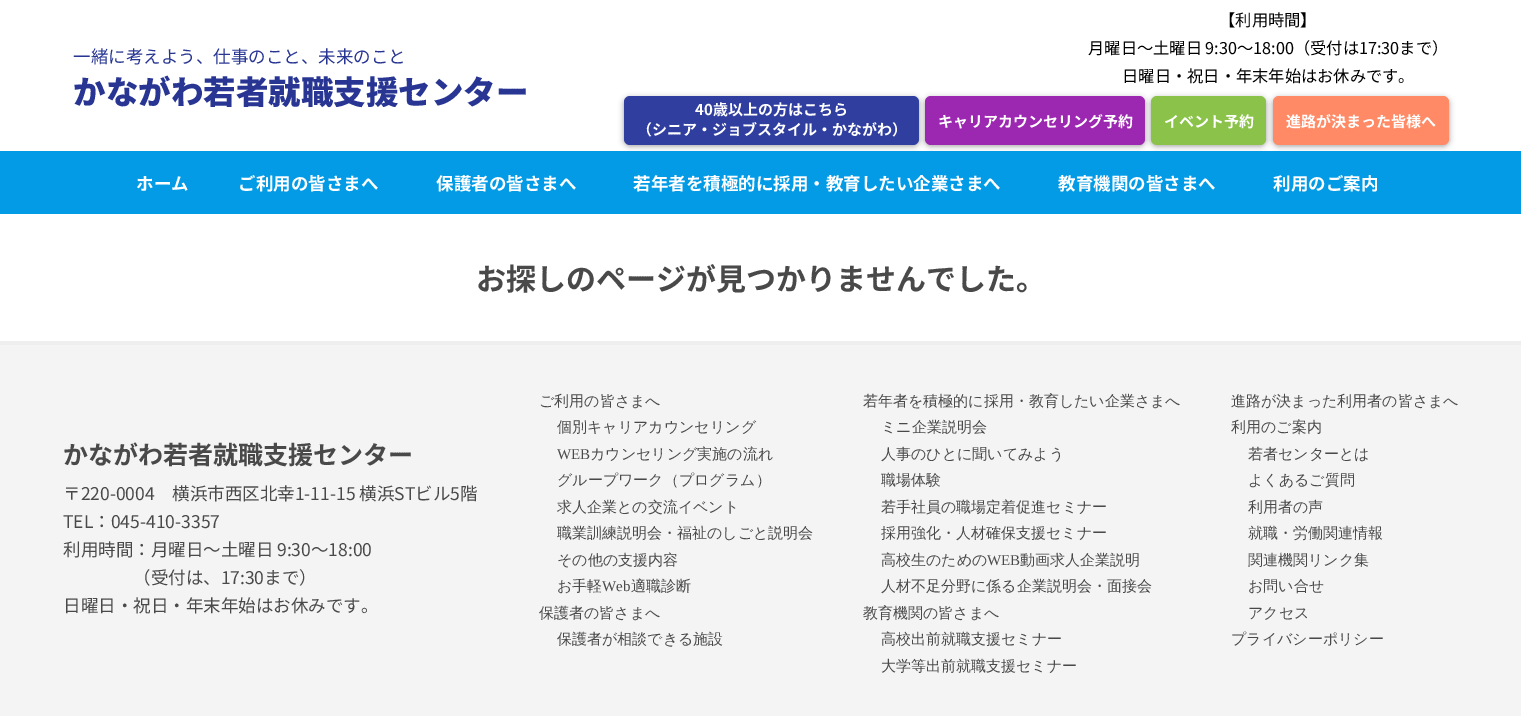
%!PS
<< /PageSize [1521 716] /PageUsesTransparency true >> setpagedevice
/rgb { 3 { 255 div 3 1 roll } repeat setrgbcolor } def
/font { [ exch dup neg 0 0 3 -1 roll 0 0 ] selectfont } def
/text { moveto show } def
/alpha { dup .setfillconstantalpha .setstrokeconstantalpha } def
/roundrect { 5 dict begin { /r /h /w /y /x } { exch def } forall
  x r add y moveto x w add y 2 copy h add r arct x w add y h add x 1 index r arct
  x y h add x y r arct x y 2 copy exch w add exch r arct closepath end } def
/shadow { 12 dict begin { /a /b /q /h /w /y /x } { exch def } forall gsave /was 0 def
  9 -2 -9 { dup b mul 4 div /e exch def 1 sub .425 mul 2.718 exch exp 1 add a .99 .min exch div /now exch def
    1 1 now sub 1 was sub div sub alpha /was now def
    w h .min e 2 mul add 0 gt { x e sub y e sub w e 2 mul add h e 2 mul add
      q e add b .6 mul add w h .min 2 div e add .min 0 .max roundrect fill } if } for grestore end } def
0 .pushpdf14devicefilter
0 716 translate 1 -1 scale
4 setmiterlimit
255 255 255 rgb
0 0 1521 716 rectfill
153 153 153 rgb
624 98 295 48 6 3 1 shadow
48 63 159 rgb
624 96 295 49 6 roundrect fill
153 153 153 rgb
925 98 220 48 6 3 1 shadow
156 39 176 rgb
925 96 220 49 6 roundrect fill
153 153 153 rgb
1151 98 115 48 6 3 1 shadow
139 195 74 rgb
1151 96 115 49 6 roundrect fill
153 153 153 rgb
1273 98 176 48 6 3 1 shadow
255 138 101 rgb
1273 96 176 49 6 roundrect fill
3 155 229 rgb
0 151 1521 63 rectfill
244 244 244 rgb
0 345 1521 371 rectfill
238 238 238 rgb
0 341 1521 4 rectfill
/NotoSansJP-Regular 17.5 font
40 53 147 rgb
(一緒に考えよう、仕事のこと、未来のこと) 73 63 text
/NotoSansJP-Black 32.5 font
(かながわ若者就職支援センター) 73 104 text
/NotoSansJP-Regular 16.25 font
0 0 0 rgb
(【利用時間】) 1219 26 text
(月曜日～土曜日 9:30～18:00（受付は17:30まで）) 1088 54 text
(日曜日・祝日・年末年始はお休みです。) 1122 82 text
/NotoSansJP-Bold 15 font
255 255 255 rgb
(40歳以上の方はこちら) 695 115 text
(（シニア・ジョブスタイル・かながわ）) 637 135 text
(キャリアカウンセリング予約) 938 127 text
(イベント予約) 1164 127 text
(進路が決まった皆様へ) 1286 127 text
/NotoSansJP-Bold 17.5 font
(ホーム) 136 190 text
(ご利用の皆さまへ) 238 190 text
(保護者の皆さまへ) 436 190 text
(若年者を積極的に採用・教育したい企業さまへ) 633 190 text
(教育機関の皆さまへ) 1058 190 text
(利用のご案内) 1273 190 text
/NotoSansJP-Bold 30 font
73 73 73 rgb
(お探しのページが見つかりませんでした。) 476 290 text
/NotoSansJP-Bold 25 font
(かながわ若者就職支援センター) 63 464 text
/NotoSansJP-Regular 17.5 font
(〒220-0004　横浜市西区北幸1-11-15 横浜STビル5階) 63 500 text
(TEL：045-410-3357) 63 528 text
(利用時間：月曜日～土曜日 9:30～18:00) 63 556 text
(（受付は、17:30まで）) 133 584 text
(日曜日・祝日・年末年始はお休みです。) 63 612 text
/WenQuanYiZenHei-Medium 15 font
(ご利用の皆さまへ) 539 406 text
(個別キャリアカウンセリング) 557 432 text
/LiberationSerif-Regular 15 font
(WEB) 557 459 text
/WenQuanYiZenHei-Medium 15 font
(カウンセリング実施の流れ) 590 459 text
(グループワーク（プログラム）) 557 485 text
(求人企業との交流イベント) 557 512 text
(職業訓練説明会・福祉のしごと説明会) 557 538 text
(その他の支援内容) 557 565 text
(お手軽) 557 591 text
/LiberationSerif-Regular 15 font
(Web) 602 591 text
/WenQuanYiZenHei-Medium 15 font
(適職診断) 631 591 text
(保護者の皆さまへ) 539 618 text
(保護者が相談できる施設) 557 644 text
(若年者を積極的に採用・教育したい企業さまへ) 863 406 text
(ミニ企業説明会) 881 432 text
(人事のひとに聞いてみよう) 881 459 text
(職場体験) 881 485 text
(若手社員の職場定着促進セミナー) 881 512 text
(採用強化・人材確保支援セミナー) 881 538 text
(高校生のための) 881 565 text
/LiberationSerif-Regular 15 font
(WEB) 987 565 text
/WenQuanYiZenHei-Medium 15 font
(動画求人企業説明) 1020 565 text
(人材不足分野に係る企業説明会・面接会) 881 591 text
(教育機関の皆さまへ) 863 618 text
(高校出前就職支援セミナー) 881 644 text
(大学等出前就職支援セミナー) 881 671 text
(進路が決まった利用者の皆さまへ) 1231 406 text
(利用のご案内) 1231 432 text
(若者センターとは) 1248 459 text
(よくあるご質問) 1248 485 text
(利用者の声) 1248 512 text
(就職・労働関連情報) 1248 538 text
(関連機関リンク集) 1248 565 text
(お問い合せ) 1248 591 text
(アクセス) 1248 618 text
(プライバシーポリシー) 1231 644 text
.poppdf14devicefilter showpage
